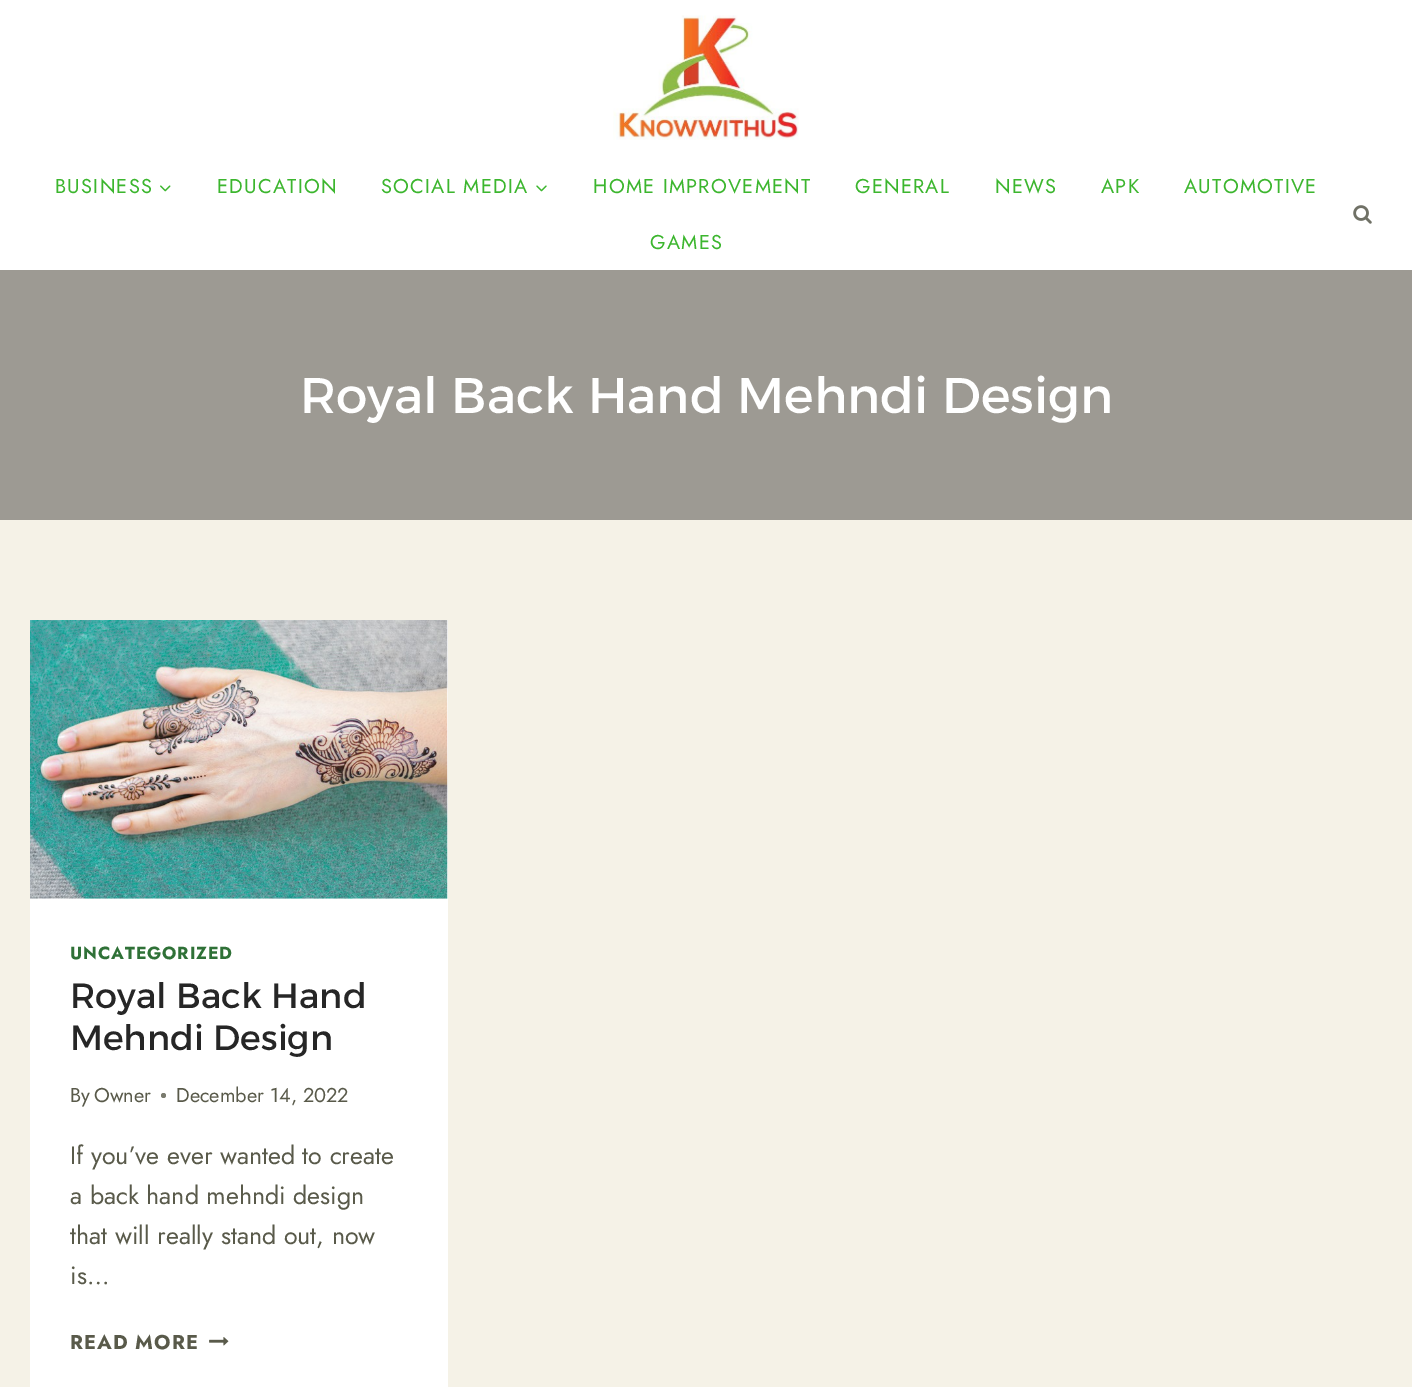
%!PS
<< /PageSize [1412 1387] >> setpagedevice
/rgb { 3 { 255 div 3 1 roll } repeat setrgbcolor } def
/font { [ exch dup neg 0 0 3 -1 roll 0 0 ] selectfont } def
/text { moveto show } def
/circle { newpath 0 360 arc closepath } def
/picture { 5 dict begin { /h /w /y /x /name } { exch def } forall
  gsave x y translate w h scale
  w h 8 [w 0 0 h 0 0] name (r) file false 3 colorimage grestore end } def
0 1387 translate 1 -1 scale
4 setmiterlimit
245 242 231 rgb
0 0 1412 1387 rectfill
255 255 255 rgb
0 0 1412 270 rectfill
(img_01.rgb) 613 15 186 125 picture
(img_02.rgb) 160 185 11 7 picture
(img_03.rgb) 536 185 11 7 picture
(img_04.rgb) 1353 205 19 19 picture
157 154 147 rgb
0 270 1412 250 rectfill
255 255 255 rgb
30 620 418 767 rectfill
(img_05.rgb) 30 620 418 279 picture
122 123 110 rgb
163.5 1095.5 2.5 circle fill
(img_06.rgb) 209 1337 20 9 picture
/Jost-Regular 20 font
60 182 46 rgb
55 193 moveto 1.25 0 (BUSINESS) ashow
217 193 moveto 1.25 0 (EDUCATION) ashow
381 193 moveto 1.25 0 (SOCIAL MEDIA) ashow
593 193 moveto 1.25 0 (HOME IMPROVEMENT) ashow
855 193 moveto 1.25 0 (GENERAL) ashow
995 193 moveto 1.25 0 (NEWS) ashow
1101 193 moveto 1.25 0 (APK) ashow
1184 193 moveto 1.25 0 (AUTOMOTIVE) ashow
650 249 moveto 1.25 0 (GAMES) ashow
/Alexandria-Regular 50 font
255 255 255 rgb
(Royal Back Hand Mehndi Design) 300 413 text
/Jost-Bold 17.5 font
47 113 55 rgb
70 959 moveto 0.9 0 (UNCATEGORIZED) ashow
/Alexandria-Regular 35 font
38 38 38 rgb
(Royal Back Hand) 70 1008 text
(Mehndi Design) 70 1050 text
/Jost-Regular 20 font
89 90 74 rgb
(By) 70 1102 text
(Owner) 94 1102 text
(December 14, 2022) 176 1102 text
/Jost-Regular 25 font
(If you’ve ever wanted to create) 70 1164 text
(a back hand mehndi design) 70 1204 text
(that will really stand out, now) 70 1244 text
(is…) 70 1284 text
/Jost-Bold 20 font
70 1349 moveto 1 0 (READ MORE) ashow
showpage
